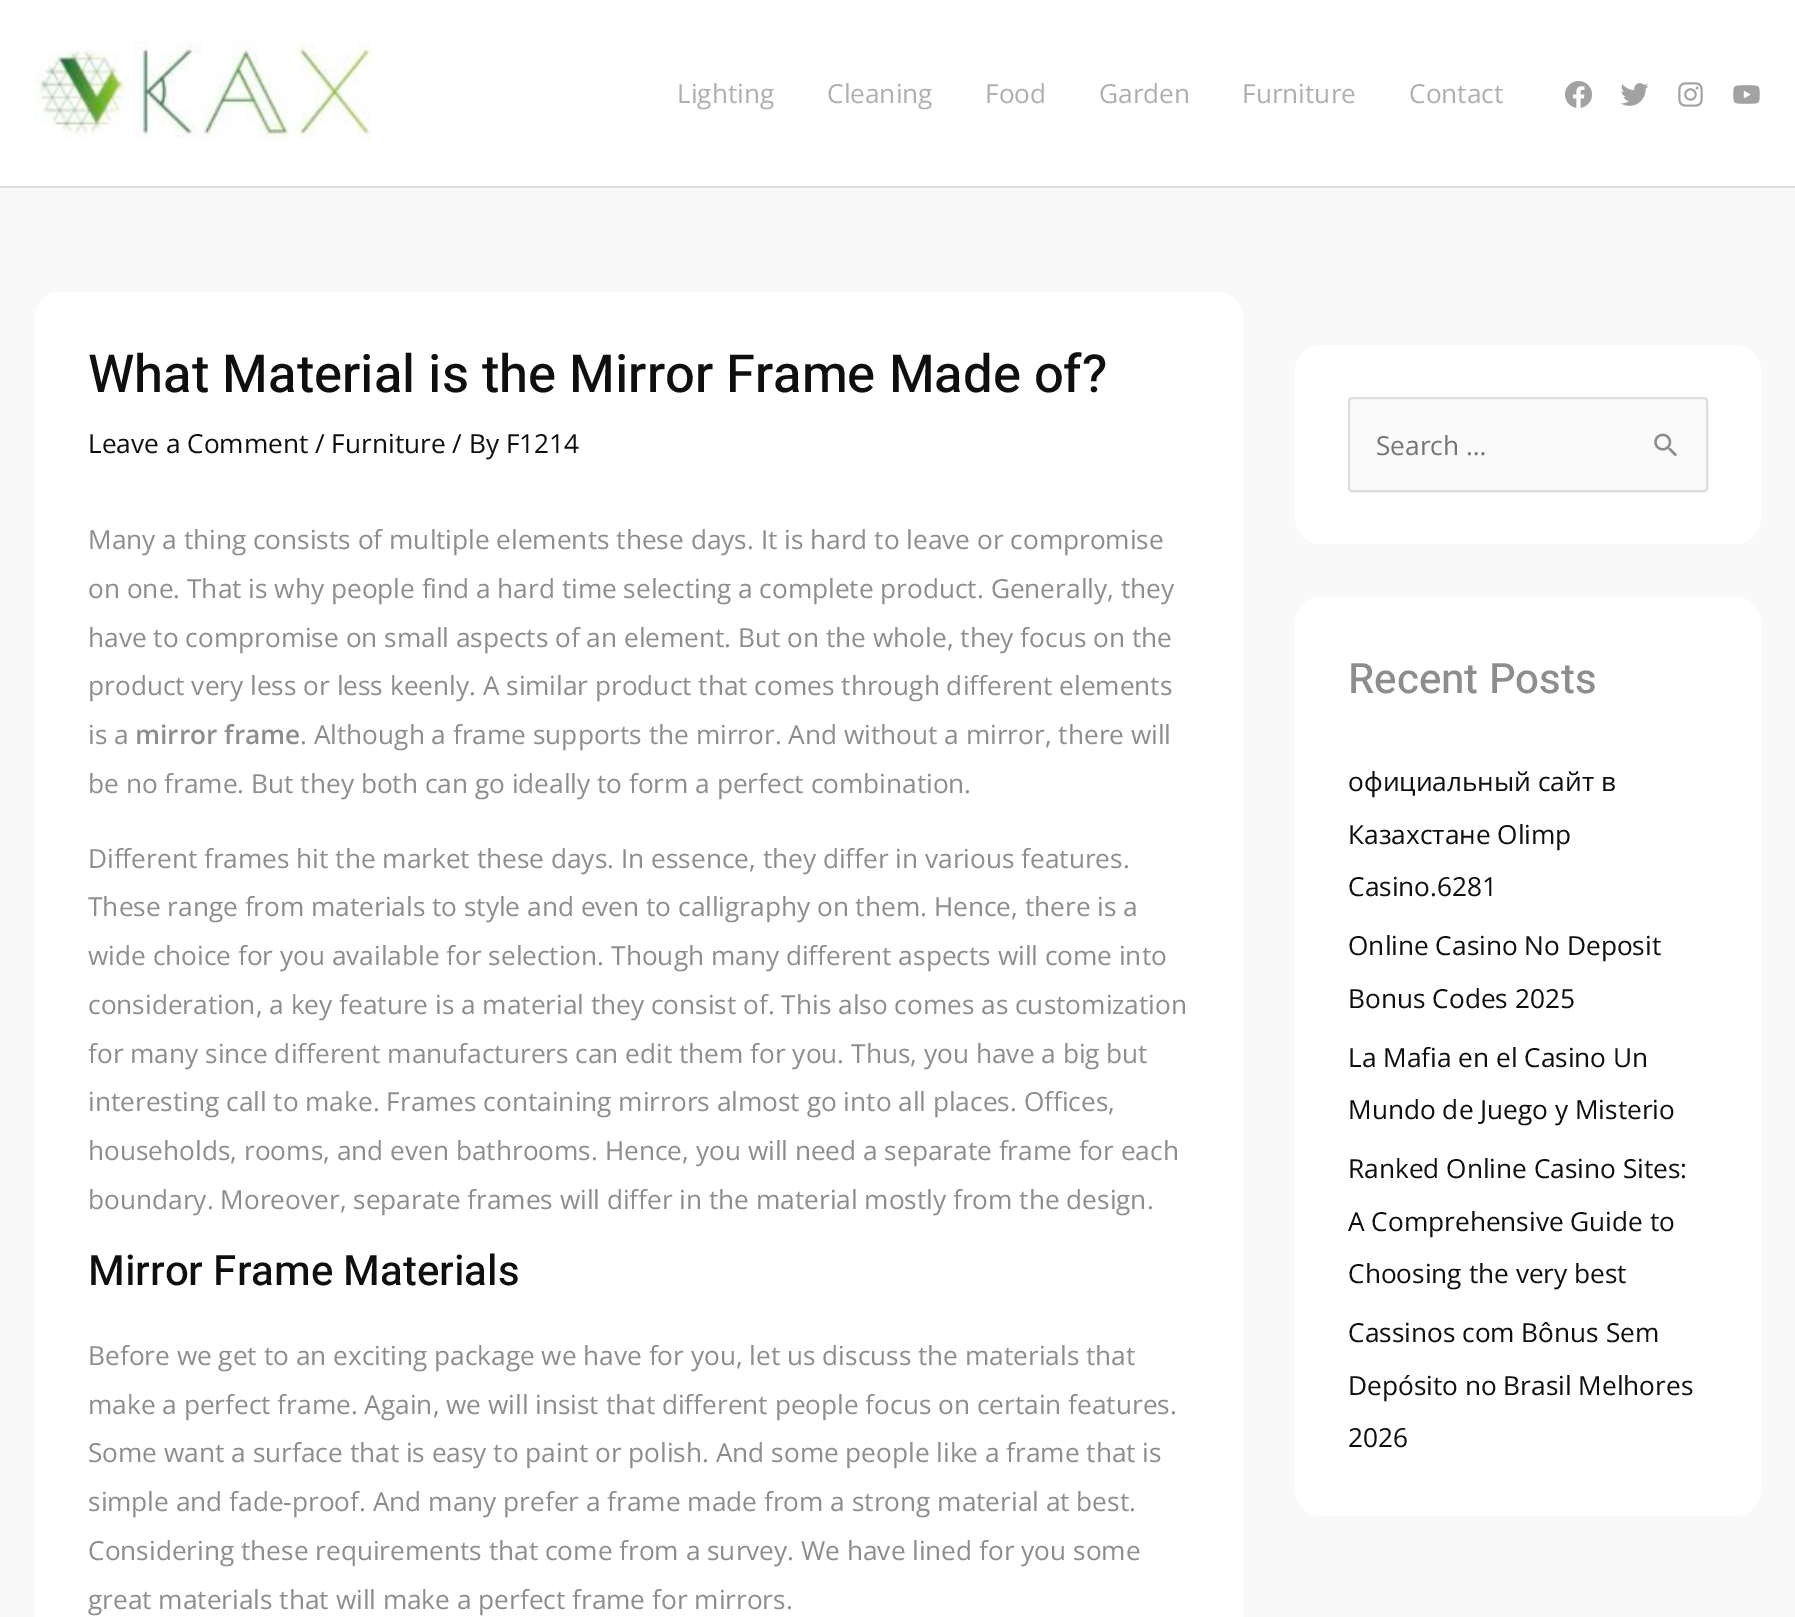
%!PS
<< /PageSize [1795 1617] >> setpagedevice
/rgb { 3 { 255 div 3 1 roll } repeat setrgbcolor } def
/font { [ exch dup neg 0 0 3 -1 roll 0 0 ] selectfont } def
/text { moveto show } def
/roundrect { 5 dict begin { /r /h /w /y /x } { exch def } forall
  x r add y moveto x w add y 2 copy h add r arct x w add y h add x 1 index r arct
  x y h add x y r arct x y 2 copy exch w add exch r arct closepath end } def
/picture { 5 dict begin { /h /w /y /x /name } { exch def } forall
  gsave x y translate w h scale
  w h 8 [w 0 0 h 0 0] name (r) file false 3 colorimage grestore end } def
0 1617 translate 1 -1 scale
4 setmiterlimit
249 249 249 rgb
0 0 1795 1617 rectfill
255 255 255 rgb
0 0 1795 186 rectfill
221 221 221 rgb
0 186 1795 2 rectfill
(img_01.rgb) 35 41 338 99 picture
(img_02.rgb) 1565 81 27 27 picture
(img_03.rgb) 1621 83 28 23 picture
(img_04.rgb) 1678 82 25 25 picture
(img_05.rgb) 1733 85 27 19 picture
255 255 255 rgb
35 292 1208 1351 26 roundrect fill
1295 345 466 199 26 roundrect fill
250 250 250 rgb
1349 398 358 93 3 roundrect gsave fill grestore
221 221 221 rgb
2 setlinewidth
stroke
(img_06.rgb) 1654 433 23 24 picture
255 255 255 rgb
1295 597 466 919 26 roundrect fill
/OpenSans-Regular 26.25 font
175 175 175 rgb
(Lighting) 677 103 text
(Cleaning) 827 103 text
(Food) 985 103 text
(Garden) 1099 103 text
(Furniture) 1242 103 text
(Contact) 1409 103 text
/Heebo-Medium 52.5 font
15 15 15 rgb
(What Material is the Mirror Frame Made of?) 88 392 text
/OpenSans-Regular 26.25 font
(Leave a Comment / Furniture / By F1214) 88 453 text
141 141 141 rgb
(Many a thing consists of multiple elements these days. It is hard to leave or compromise) 88 549 text
(on one. That is why people find a hard time selecting a complete product. Generally, they) 88 598 text
(have to compromise on small aspects of an element. But on the whole, they focus on the) 88 647 text
(product very less or less keenly. A similar product that comes through different elements) 88 695 text
(is a) 88 744 text
/OpenSans-SemiBold 26.25 font
(mirror frame) 135 744 text
/OpenSans-Regular 26.25 font
(. Although a frame supports the mirror. And without a mirror, there will) 300 744 text
(be no frame. But they both can go ideally to form a perfect combination.) 88 793 text
(Different frames hit the market these days. In essence, they differ in various features.) 88 868 text
(These range from materials to style and even to calligraphy on them. Hence, there is a) 88 916 text
(wide choice for you available for selection. Though many different aspects will come into) 88 965 text
(consideration, a key feature is a material they consist of. This also comes as customization) 88 1014 text
(for many since different manufacturers can edit them for you. Thus, you have a big but) 88 1063 text
(interesting call to make. Frames containing mirrors almost go into all places. Offices,) 88 1111 text
(households, rooms, and even bathrooms. Hence, you will need a separate frame for each) 88 1160 text
(boundary. Moreover, separate frames will differ in the material mostly from the design.) 88 1209 text
/Heebo-Medium 42 font
15 15 15 rgb
(Mirror Frame Materials) 88 1285 text
/OpenSans-Regular 26.25 font
141 141 141 rgb
(Before we get to an exciting package we have for you, let us discuss the materials that) 88 1365 text
(make a perfect frame. Again, we will insist that different people focus on certain features.) 88 1414 text
(Some want a surface that is easy to paint or polish. And some people like a frame that is) 88 1462 text
(simple and fade-proof. And many prefer a frame made from a strong material at best.) 88 1511 text
(Considering these requirements that come from a survey. We have lined for you some) 88 1560 text
(great materials that will make a perfect frame for mirrors.) 88 1609 text
117 117 117 rgb
(Search …) 1376 455 text
/Heebo-Medium 42 font
141 141 141 rgb
(Recent Posts) 1348 693 text
/OpenSans-Regular 26.25 font
15 15 15 rgb
(официальный сайт в) 1348 791 text
(Казахстане Olimp) 1348 844 text
(Casino.6281) 1348 896 text
(Online Casino No Deposit) 1348 955 text
(Bonus Codes 2025) 1348 1008 text
(La Mafia en el Casino Un) 1348 1067 text
(Mundo de Juego y Misterio) 1348 1119 text
(Ranked Online Casino Sites:) 1348 1178 text
(A Comprehensive Guide to) 1348 1231 text
(Choosing the very best) 1348 1283 text
(Cassinos com Bônus Sem) 1348 1342 text
(Depósito no Brasil Melhores) 1348 1395 text
(2026) 1348 1447 text
showpage
